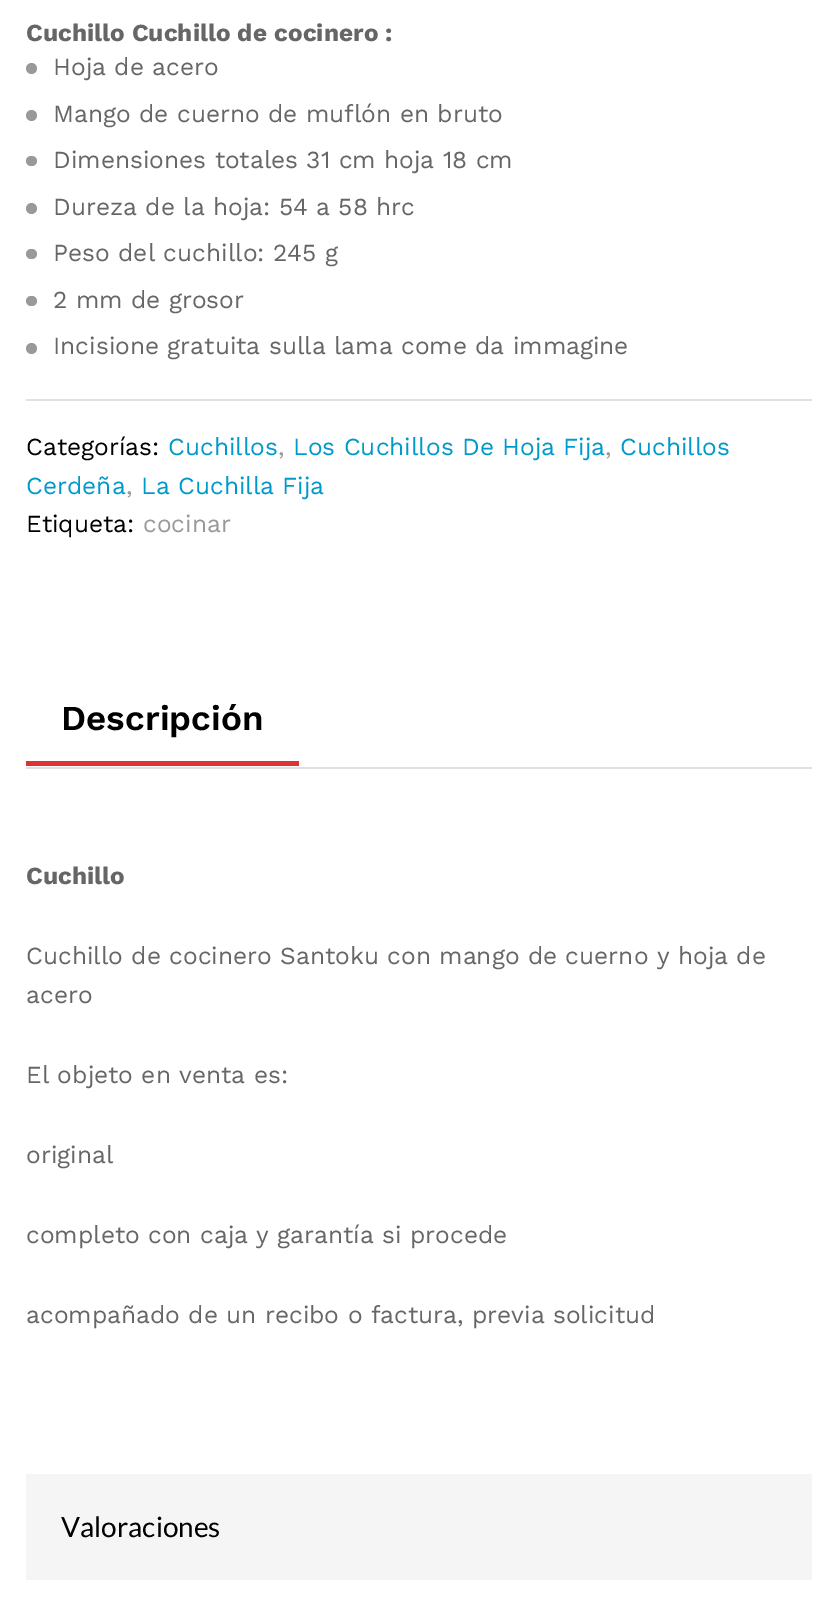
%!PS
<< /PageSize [838 1616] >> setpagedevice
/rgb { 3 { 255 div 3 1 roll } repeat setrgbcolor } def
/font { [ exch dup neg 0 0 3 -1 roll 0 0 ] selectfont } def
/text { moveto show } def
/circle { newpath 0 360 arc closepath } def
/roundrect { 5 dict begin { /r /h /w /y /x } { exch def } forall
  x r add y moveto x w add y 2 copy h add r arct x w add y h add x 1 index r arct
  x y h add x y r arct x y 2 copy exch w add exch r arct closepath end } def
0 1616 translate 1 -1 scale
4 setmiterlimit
255 255 255 rgb
0 0 838 1616 rectfill
153 153 153 rgb
31.5 68.5 5.5 circle fill
31.5 115.5 5.5 circle fill
26 156 11 10 5 roundrect fill
31.5 208.5 5.5 circle fill
26 249 11 10 5 roundrect fill
26 296 11 10 5 roundrect fill
31.5 348.5 5.5 circle fill
225 225 225 rgb
26 399 786 2 rectfill
26 767 786 2 rectfill
221 51 51 rgb
26 761 273 5 rectfill
245 245 245 rgb
26 1474 786 106 rectfill
/WorkSans-Bold 24.5 font
102 102 102 rgb
(Cuchillo Cuchillo de cocinero :) 26 41 text
/WorkSans-Regular 24.5 font
(Hoja de acero) 53 75 text
(Mango de cuerno de muflón en bruto) 53 122 text
(Dimensiones totales 31 cm hoja 18 cm) 53 168 text
(Dureza de la hoja: 54 a 58 hrc) 53 215 text
(Peso del cuchillo: 245 g) 53 261 text
(2 mm de grosor) 53 308 text
(Incisione gratuita sulla lama come da immagine) 53 354 text
0 0 0 rgb
(Categorías:) 26 455 text
0 153 204 rgb
(Cuchillos) 168 455 text
153 153 153 rgb
(,) 278 455 text
0 153 204 rgb
(Los Cuchillos De Hoja Fija) 293 455 text
153 153 153 rgb
(,) 605 455 text
0 153 204 rgb
(Cuchillos) 620 455 text
(Cerdeña) 26 494 text
153 153 153 rgb
(,) 126 494 text
0 153 204 rgb
(La Cuchilla Fija) 141 494 text
0 0 0 rgb
(Etiqueta:) 26 532 text
153 153 153 rgb
(cocinar) 143 532 text
/WorkSans-SemiBold 35 font
0 0 0 rgb
(Descripción) 61 730 text
/WorkSans-Bold 24.5 font
102 102 102 rgb
(Cuchillo) 26 884 text
/WorkSans-Regular 24.5 font
(Cuchillo de cocinero Santoku con mango de cuerno y hoja de) 26 964 text
(acero) 26 1003 text
(El objeto en venta es:) 26 1083 text
(original) 26 1163 text
(completo con caja y garantía si procede) 26 1243 text
(acompañado de un recibo o factura, previa solicitud) 26 1323 text
/Lato-Regular 28 font
0 0 0 rgb
(Valoraciones) 61 1537 text
showpage
